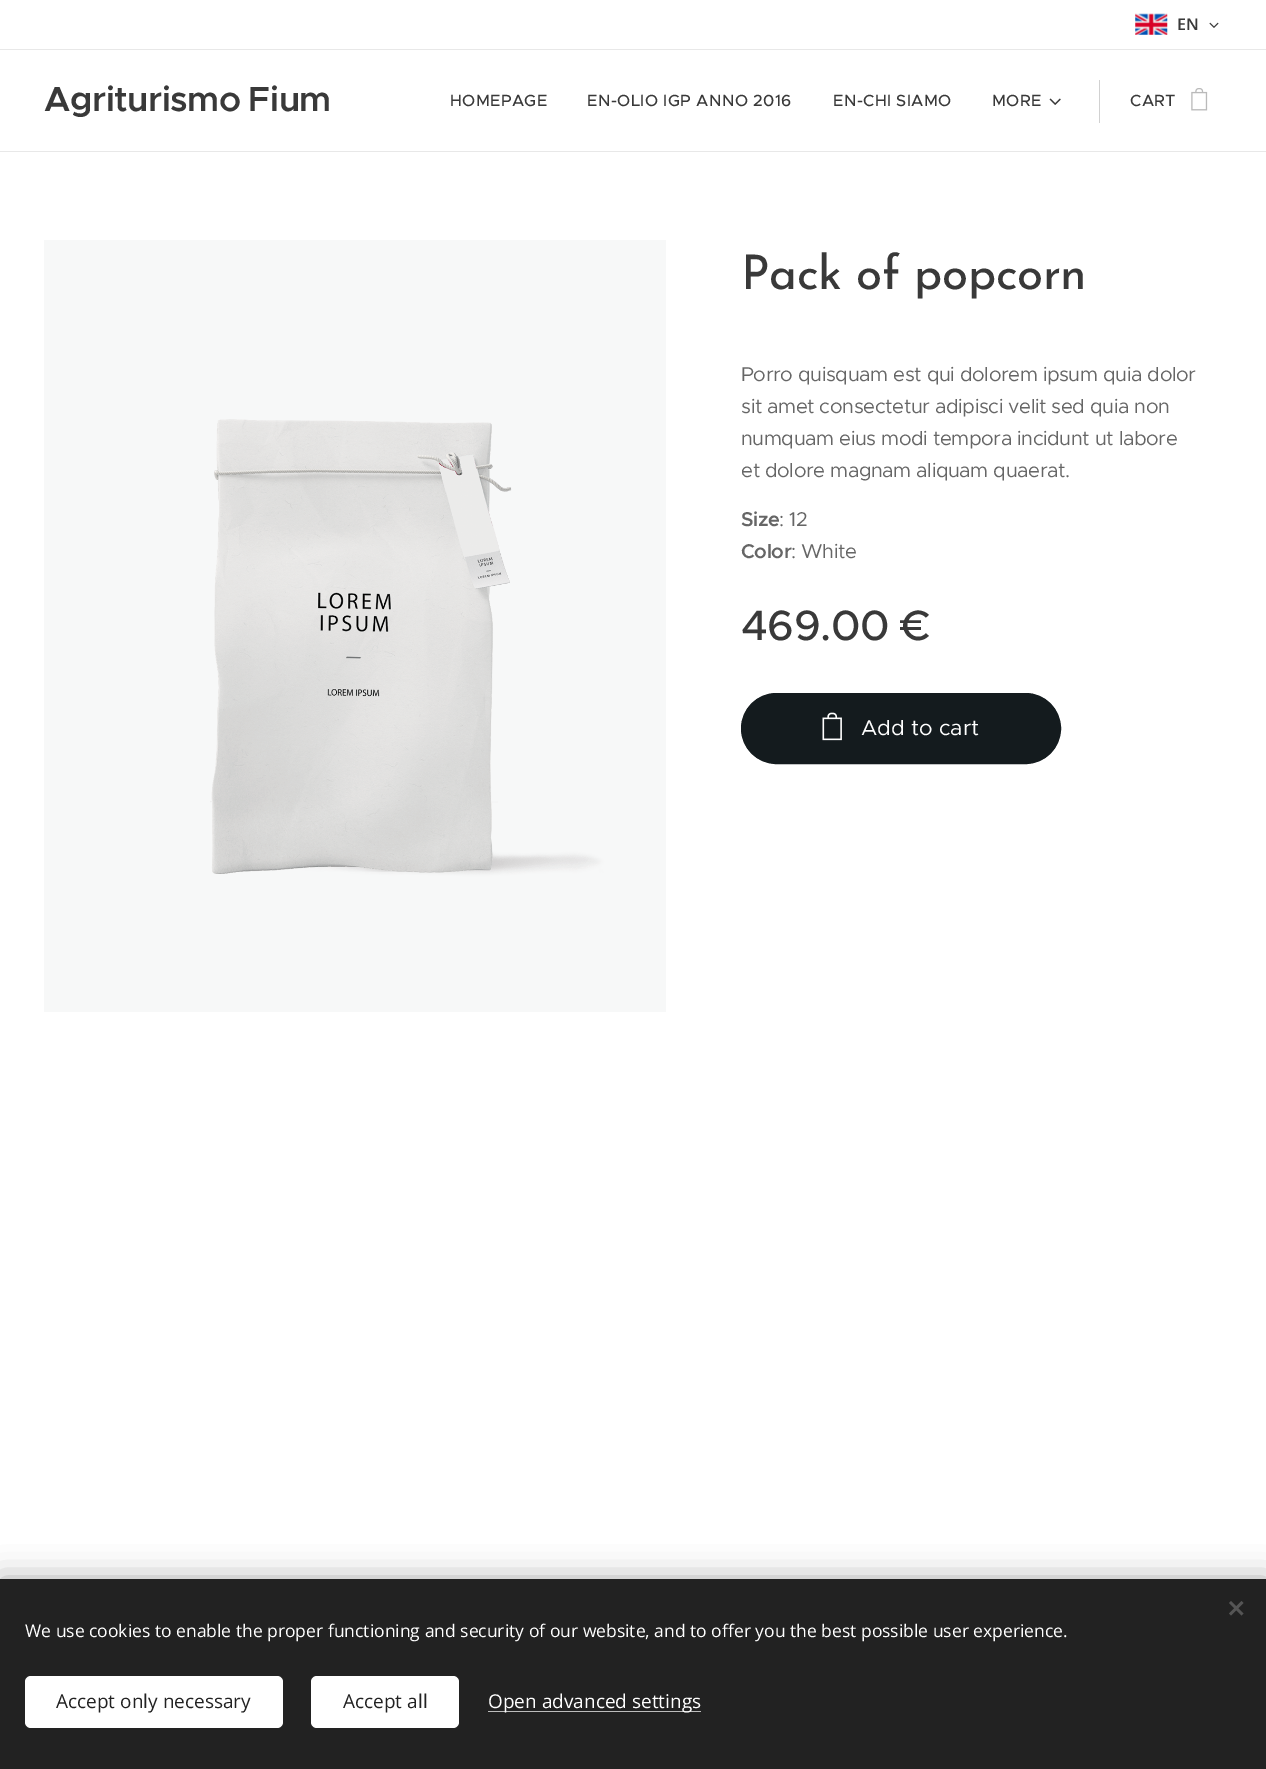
%!PS
<< /PageSize [1266 1769] /PageUsesTransparency true >> setpagedevice
/rgb { 3 { 255 div 3 1 roll } repeat setrgbcolor } def
/font { [ exch dup neg 0 0 3 -1 roll 0 0 ] selectfont } def
/text { moveto show } def
/alpha { dup .setfillconstantalpha .setstrokeconstantalpha } def
/roundrect { 5 dict begin { /r /h /w /y /x } { exch def } forall
  x r add y moveto x w add y 2 copy h add r arct x w add y h add x 1 index r arct
  x y h add x y r arct x y 2 copy exch w add exch r arct closepath end } def
/shadow { 12 dict begin { /a /b /q /h /w /y /x } { exch def } forall gsave /was 0 def
  9 -2 -9 { dup b mul 4 div /e exch def 1 sub .425 mul 2.718 exch exp 1 add a .99 .min exch div /now exch def
    1 1 now sub 1 was sub div sub alpha /was now def
    w h .min e 2 mul add 0 gt { x e sub y e sub w e 2 mul add h e 2 mul add
      q e add b .6 mul add w h .min 2 div e add .min 0 .max roundrect fill } if } for grestore end } def
/picture { 5 dict begin { /h /w /y /x /name } { exch def } forall
  gsave x y translate w h scale
  w h 8 [w 0 0 h 0 0] name (r) file false 3 colorimage grestore end } def
0 .pushpdf14devicefilter
0 1769 translate 1 -1 scale
4 setmiterlimit
255 255 255 rgb
0 0 1266 1769 rectfill
(img_01.rgb) 1135 13 33 22 picture
(img_02.rgb) 1209 22 10 6 picture
232 232 232 rgb
0 49 1266 1 rectfill
(img_03.rgb) 1049 98 12 7 picture
209 209 209 rgb
1099 80 1 43 rectfill
(img_04.rgb) 1191 88 17 23 picture
232 232 232 rgb
0 151 1266 1 rectfill
(img_05.rgb) 44 240 622 772 picture
20 27 30 rgb
741.5 693.5 319 70 35 roundrect gsave fill grestore
stroke
(img_06.rgb) 822 712 20 29 picture
0 0 0 rgb
0 1579 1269 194 0 15.5 0.33 shadow
34 34 34 rgb
0 1579 1266 190 rectfill
85 85 85 rgb
1229 1613.5 moveto 12.5 -12.5 rlineto 2 2 rlineto -12.5 12.5 rlineto closepath fill
1231 1601 moveto 12.5 12.5 rlineto -2 2 rlineto -12.5 -12.5 rlineto closepath fill
255 255 255 rgb
25 1676 258 52 6 roundrect fill
311 1676 148 52 6 roundrect fill
189 189 189 rgb
488 1711 213 1 rectfill
/OpenSans-SemiBold 16.25 font
57 57 57 rgb
(EN) 1177 30 text
/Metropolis-SemiBold 35 font
44 111 moveto -2 0 32 -0.4 0 (Agriturismo Fium) awidthshow
/Metropolis-Medium 16.25 font
450 106 moveto 0.4 0 (HOMEPAGE) ashow
587 106 moveto 0.4 0 (EN-OLIO IGP ANNO 2016) ashow
833 106 moveto 0.4 0 (EN-CHI SIAMO) ashow
992 106 moveto 0.4 0 (MORE) ashow
1130 106 moveto 0.4 0 (CART) ashow
/JosefinSans-Regular 47.5 font
741 289 moveto -0.4 0 (Pack of popcorn) ashow
/Metropolis-Regular 20 font
102 102 102 rgb
741 381 moveto -0.4 0 (Porro quisquam est qui dolorem ipsum quia dolor) ashow
741 413 moveto -0.4 0 (sit amet consectetur adipisci velit sed quia non) ashow
741 445 moveto -0.4 0 (numquam eius modi tempora incidunt ut labore) ashow
741 477 moveto -0.4 0 (et dolore magnam aliquam quaerat.) ashow
/Metropolis-SemiBold 20 font
741 526 moveto -0.4 0 (Size) ashow
/Metropolis-Regular 20 font
779 526 moveto -0.4 0 (: 12) ashow
/Metropolis-SemiBold 20 font
741 558 moveto -0.4 0 (Color) ashow
/Metropolis-Regular 20 font
791 558 moveto -0.4 0 (: White) ashow
/Metropolis-Medium 42.5 font
57 57 57 rgb
741 640 moveto -0.4 0 (469.00 €) ashow
/Metropolis-Regular 21.5 font
255 255 255 rgb
(Add to cart) 861 735 text
/OpenSans-Regular 17.5 font
(We use cookies to enable the proper functioning and security of our website, and to offer you the best possible user experience.) 25 1637 text
/OpenSans-Regular 19 font
34 34 34 rgb
(Accept only necessary) 56 1708 text
(Accept all) 343 1708 text
255 255 255 rgb
(Open advanced settings) 488 1708 text
.poppdf14devicefilter showpage
